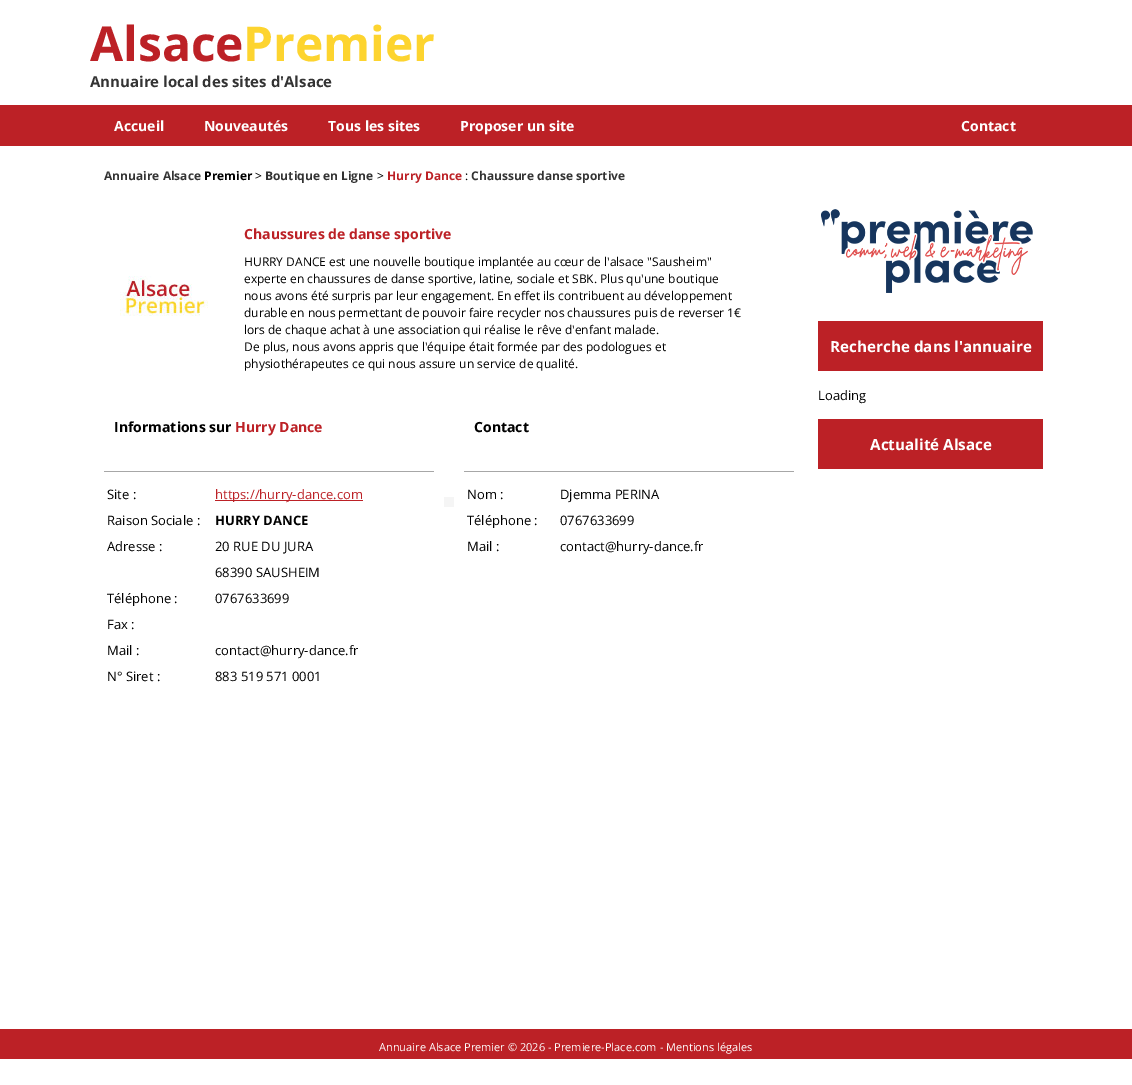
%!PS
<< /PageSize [1132 1085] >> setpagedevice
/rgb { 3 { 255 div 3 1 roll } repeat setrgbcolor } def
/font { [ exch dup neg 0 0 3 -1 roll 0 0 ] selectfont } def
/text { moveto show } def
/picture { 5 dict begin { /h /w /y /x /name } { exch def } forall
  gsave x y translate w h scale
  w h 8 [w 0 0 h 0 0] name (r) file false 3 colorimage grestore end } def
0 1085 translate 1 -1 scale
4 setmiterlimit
255 255 255 rgb
0 0 1132 1085 rectfill
188 33 38 rgb
0 105 1132 41 rectfill
(img_01.rgb) 120 276 88 40 picture
167 167 167 rgb
104 471 330 1 rectfill
464 471 330 1 rectfill
188 33 38 rgb
215 500 148 1 rectfill
245 245 245 rgb
444 497 10 10 rectfill
(img_02.rgb) 821 209 212 84 picture
188 33 38 rgb
818 321 225 50 rectfill
818 419 225 50 rectfill
0 1029 1132 30 rectfill
/OpenSans-Bold 48 font
(Alsace) 90 61 text
253 212 47 rgb
(Premier) 243 61 text
/OpenSans-Bold 15 font
51 51 51 rgb
(Annuaire local des sites d'Alsace) 90 87 text
/OpenSans-Bold 14 font
255 255 255 rgb
(Accueil) 114 131 text
(Nouveautés) 204 131 text
(Tous les sites) 328 131 text
(Proposer un site) 460 131 text
(Contact) 961 131 text
/OpenSans-Bold 12 font
51 51 51 rgb
(Annuaire Alsace) 104 180 text
0 0 0 rgb
(Premier) 204 180 text
/OpenSans-Regular 12 font
(>) 255 180 text
/OpenSans-Bold 12 font
51 51 51 rgb
(Boutique en Ligne) 265 180 text
/OpenSans-Regular 12 font
0 0 0 rgb
(>) 377 180 text
/OpenSans-Bold 12 font
188 33 38 rgb
(Hurry Dance) 387 180 text
/OpenSans-Regular 12 font
0 0 0 rgb
(:) 465 180 text
/OpenSans-Bold 12 font
51 51 51 rgb
(Chaussure danse sportive) 471 180 text
/OpenSans-Bold 14 font
188 33 38 rgb
(Chaussures de danse sportive) 244 239 text
/OpenSans-Regular 12 font
0 0 0 rgb
(HURRY DANCE est une nouvelle boutique implantée au cœur de l'alsace "Sausheim") 244 266 text
(experte en chaussures de danse sportive, latine, sociale et SBK. Plus qu'une boutique) 244 283 text
(nous avons été surpris par leur engagement. En effet ils contribuent au développement) 244 300 text
(durable en nous permettant de pouvoir faire recycler nos chaussures puis de reverser 1€) 244 317 text
(lors de chaque achat à une association qui réalise le rêve d'enfant malade.) 244 334 text
(De plus, nous avons appris que l'équipe était formée par des podologues et) 244 351 text
(physiothérapeutes ce qui nous assure un service de qualité.) 244 368 text
/OpenSans-Bold 14 font
(Informations sur) 114 432 text
188 33 38 rgb
(Hurry Dance) 235 432 text
0 0 0 rgb
(Contact) 474 432 text
/OpenSans-Regular 13 font
(Site :) 107 499 text
188 33 38 rgb
(https://hurry-dance.com) 215 499 text
0 0 0 rgb
(Raison Sociale :) 107 525 text
/OpenSans-Bold 13 font
(HURRY DANCE) 215 525 text
/OpenSans-Regular 13 font
(Adresse :) 107 551 text
(20 RUE DU JURA) 215 551 text
(68390) 215 577 text
(SAUSHEIM) 256 577 text
(Téléphone :) 107 603 text
(0767633699) 215 603 text
(Fax :) 107 629 text
(Mail :) 107 655 text
(contact@hurry-dance.fr) 215 655 text
(N° Siret :) 107 681 text
(883 519 571 0001) 215 681 text
(Nom :) 467 499 text
(Djemma PERINA) 560 499 text
(Téléphone :) 467 525 text
(0767633699) 560 525 text
(Mail :) 467 551 text
(contact@hurry-dance.fr) 560 551 text
/OpenSans-Bold 15.25 font
255 255 255 rgb
(Recherche dans l'annuaire) 830 352 text
/OpenSans-Regular 13 font
0 0 0 rgb
(Loading) 818 400 text
/OpenSans-Bold 15.25 font
255 255 255 rgb
(Actualité Alsace) 870 450 text
/OpenSans-Regular 11 font
(Annuaire Alsace Premier © 2026 - Premiere-Place.com - Mentions légales) 379 1051 text
showpage
